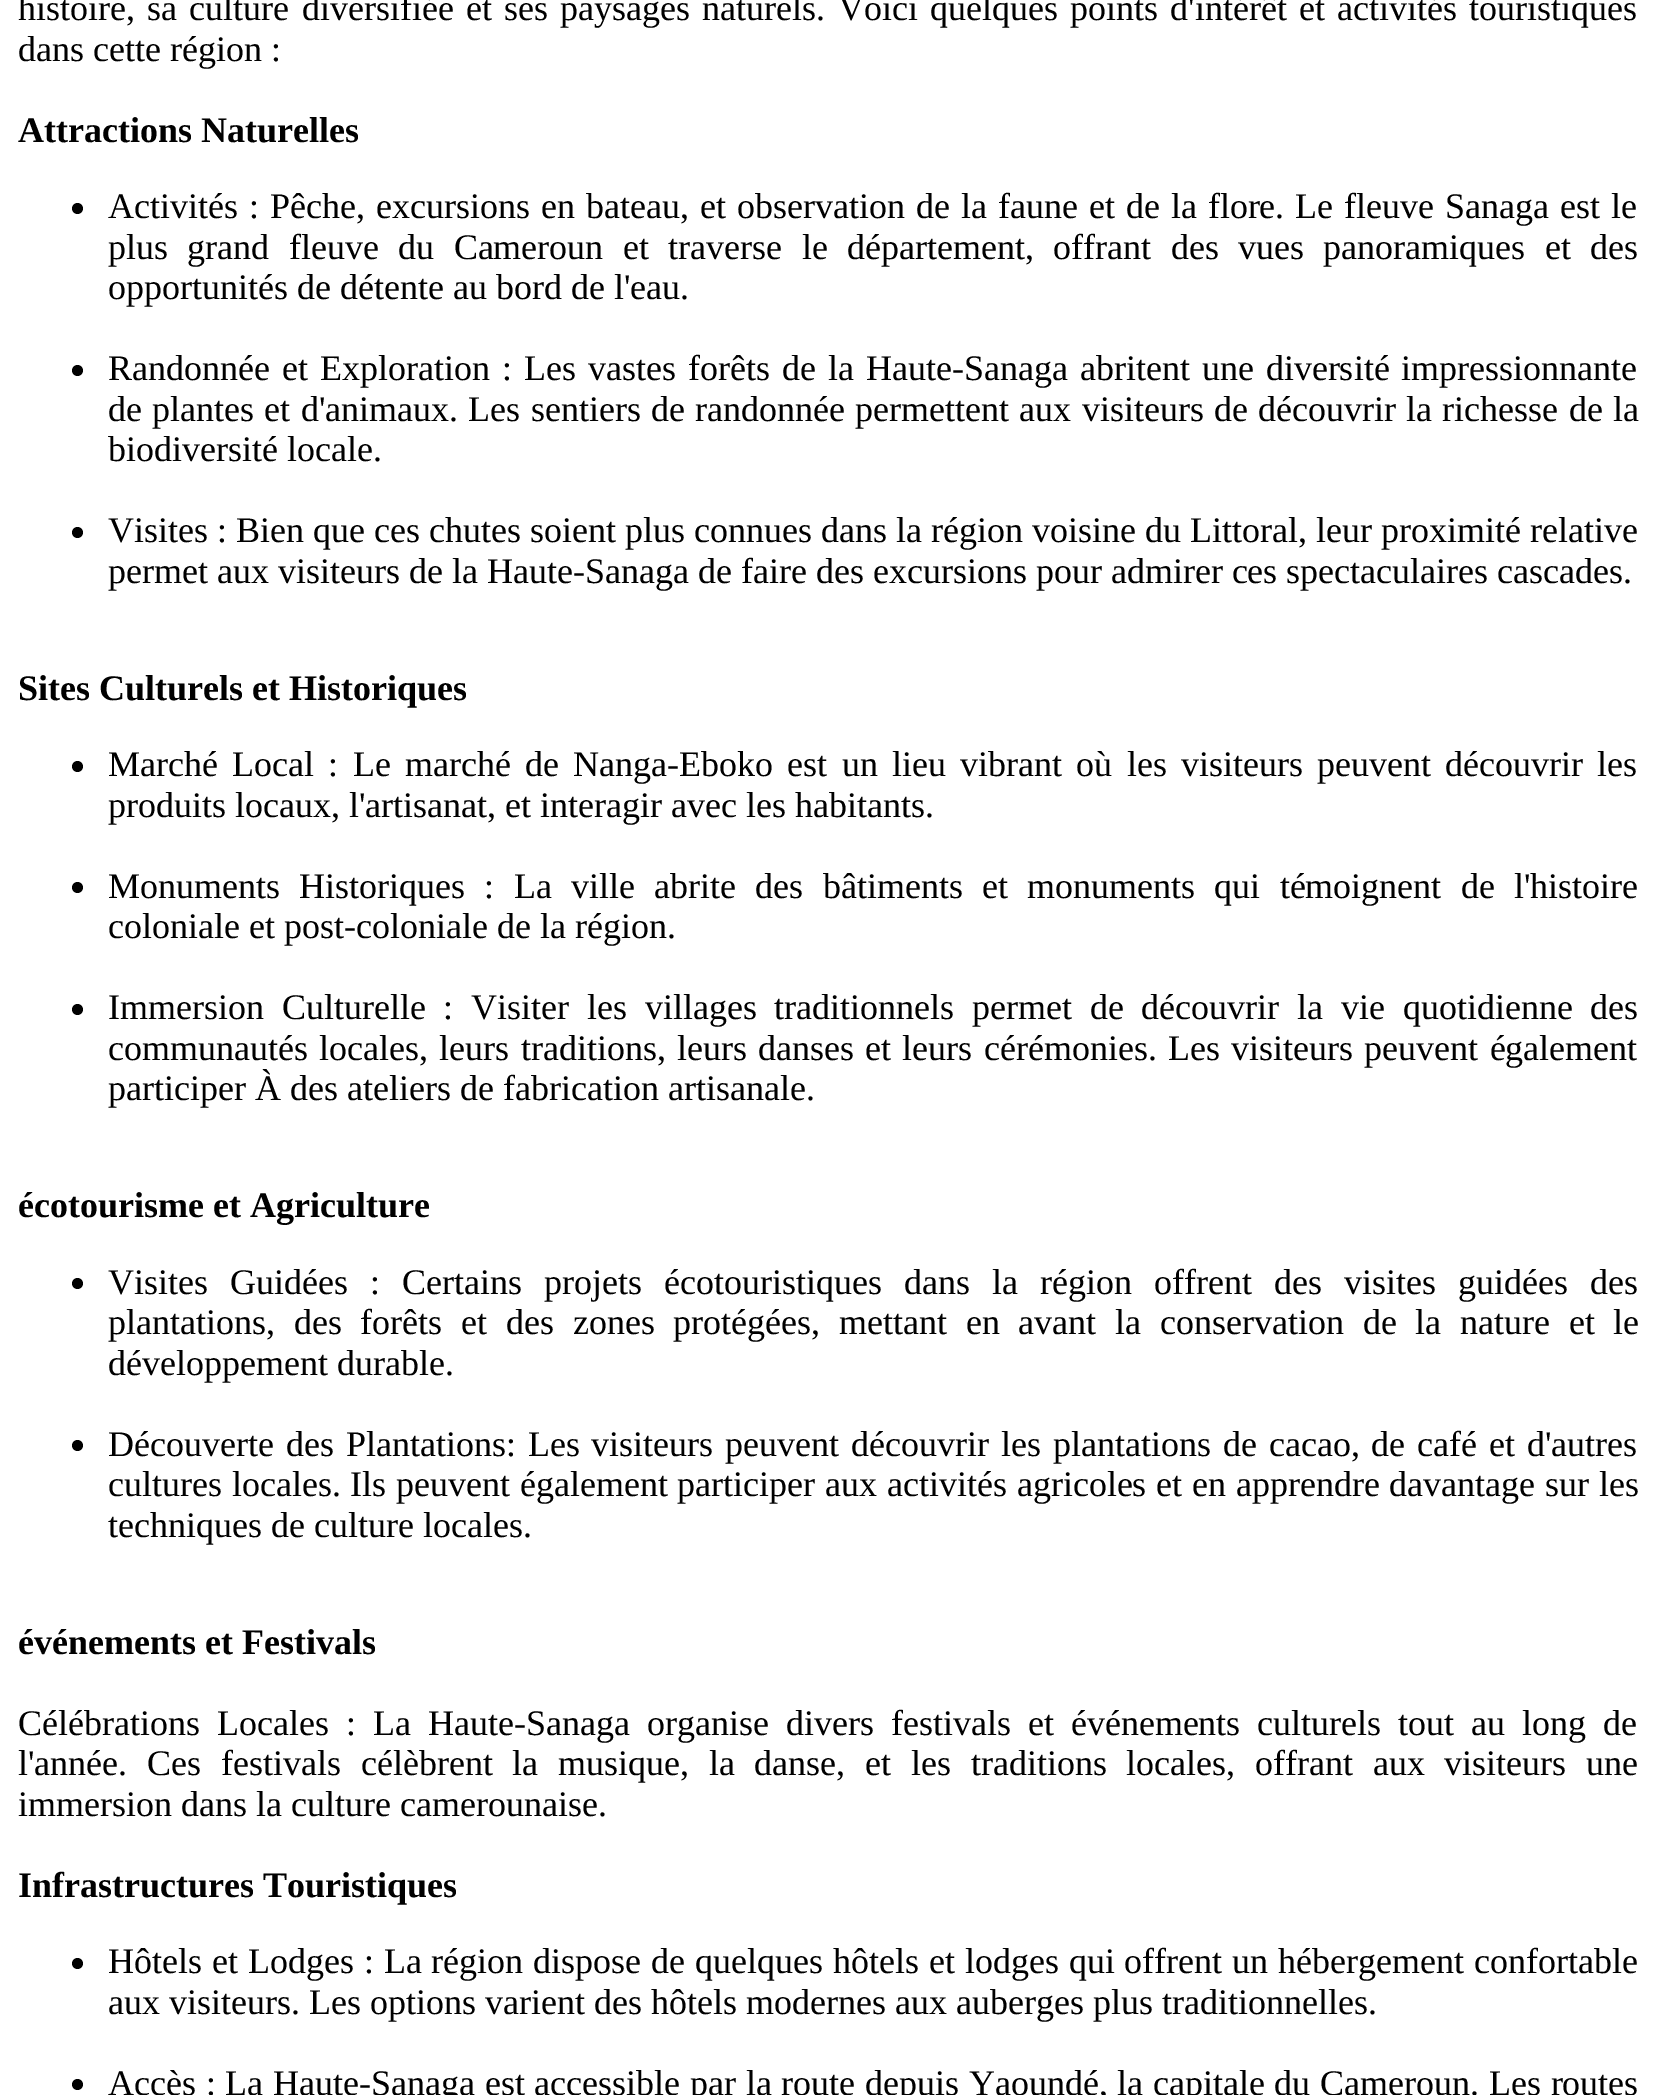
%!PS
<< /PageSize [1655 2095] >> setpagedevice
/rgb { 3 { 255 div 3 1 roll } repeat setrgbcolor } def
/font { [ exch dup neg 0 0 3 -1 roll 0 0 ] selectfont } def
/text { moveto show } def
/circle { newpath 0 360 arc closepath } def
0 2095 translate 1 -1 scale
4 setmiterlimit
255 255 255 rgb
0 0 1655 2095 rectfill
0 0 0 rgb
77.5 208.5 5.5 circle fill
77.5 370.5 5.5 circle fill
77.5 532.5 5.5 circle fill
77.5 766.5 5.5 circle fill
77.5 887.5 5.5 circle fill
77.5 1009.5 5.5 circle fill
77.5 1283.5 5.5 circle fill
77.5 1445.5 5.5 circle fill
77.5 1963.5 5.5 circle fill
77.5 2084.5 5.5 circle fill
/LiberationSerif-Regular 36 font
18 20 moveto 3.25 0 32 (histoire, sa culture diversifiée et ses paysages naturels. Voici quelques points d'intérêt et activités touristiques) widthshow
(dans cette région :) 18 61 text
/LiberationSerif-Bold 36 font
(Attractions Naturelles) 18 142 text
/LiberationSerif-Regular 36 font
108 218 moveto 2 0 32 (Activités : Pêche, excursions en bateau, et observation de la faune et de la flore. Le fleuve Sanaga est le) widthshow
108 259 moveto 10.4 0 32 (plus grand fleuve du Cameroun et traverse le département, offrant des vues panoramiques et des) widthshow
(opportunités de détente au bord de l'eau.) 108 299 text
108 380 moveto 3 0 32 (Randonnée et Exploration : Les vastes forêts de la Haute-Sanaga abritent une diversité impressionnante) widthshow
108 421 moveto 1.25 0 32 (de plantes et d'animaux. Les sentiers de randonnée permettent aux visiteurs de découvrir la richesse de la) widthshow
(biodiversité locale.) 108 461 text
(Visites : Bien que ces chutes soient plus connues dans la région voisine du Littoral, leur proximité relative) 108 542 text
(permet aux visiteurs de la Haute-Sanaga de faire des excursions pour admirer ces spectaculaires cascades.) 108 583 text
/LiberationSerif-Bold 36 font
(Sites Culturels et Historiques) 18 700 text
/LiberationSerif-Regular 36 font
108 776 moveto 5.25 0 32 (Marché Local : Le marché de Nanga-Eboko est un lieu vibrant où les visiteurs peuvent découvrir les) widthshow
(produits locaux, l'artisanat, et interagir avec les habitants.) 108 817 text
108 898 moveto 10.25 0 32 (Monuments Historiques : La ville abrite des bâtiments et monuments qui témoignent de l'histoire) widthshow
(coloniale et post-coloniale de la région.) 108 938 text
108 1019 moveto 8.75 0 32 (Immersion Culturelle : Visiter les villages traditionnels permet de découvrir la vie quotidienne des) widthshow
108 1060 moveto 2.25 0 32 (communautés locales, leurs traditions, leurs danses et leurs cérémonies. Les visiteurs peuvent également) widthshow
(participer À des ateliers de fabrication artisanale.) 108 1100 text
/LiberationSerif-Bold 36 font
(écotourisme et Agriculture) 18 1217 text
/LiberationSerif-Regular 36 font
108 1294 moveto 13 0 32 (Visites Guidées : Certains projets écotouristiques dans la région offrent des visites guidées des) widthshow
108 1334 moveto 9.75 0 32 (plantations, des forêts et des zones protégées, mettant en avant la conservation de la nature et le) widthshow
(développement durable.) 108 1375 text
108 1456 moveto 2.9 0 32 (Découverte des Plantations: Les visiteurs peuvent découvrir les plantations de cacao, de café et d'autres) widthshow
108 1496 moveto 0.75 0 32 (cultures locales. Ils peuvent également participer aux activités agricoles et en apprendre davantage sur les) widthshow
(techniques de culture locales.) 108 1537 text
/LiberationSerif-Bold 36 font
(événements et Festivals) 18 1654 text
/LiberationSerif-Regular 36 font
18 1735 moveto 8 0 32 (Célébrations Locales : La Haute-Sanaga organise divers festivals et événements culturels tout au long de) widthshow
18 1775 moveto 10.75 0 32 (l'année. Ces festivals célèbrent la musique, la danse, et les traditions locales, offrant aux visiteurs une) widthshow
(immersion dans la culture camerounaise.) 18 1816 text
/LiberationSerif-Bold 36 font
(Infrastructures Touristiques) 18 1897 text
/LiberationSerif-Regular 36 font
108 1973 moveto 0.9 0 32 (Hôtels et Lodges : La région dispose de quelques hôtels et lodges qui offrent un hébergement confortable) widthshow
(aux visiteurs. Les options varient des hôtels modernes aux auberges plus traditionnelles.) 108 2014 text
108 2095 moveto 0.7 0 32 (Accès : La Haute-Sanaga est accessible par la route depuis Yaoundé, la capitale du Cameroun. Les routes) widthshow
showpage
